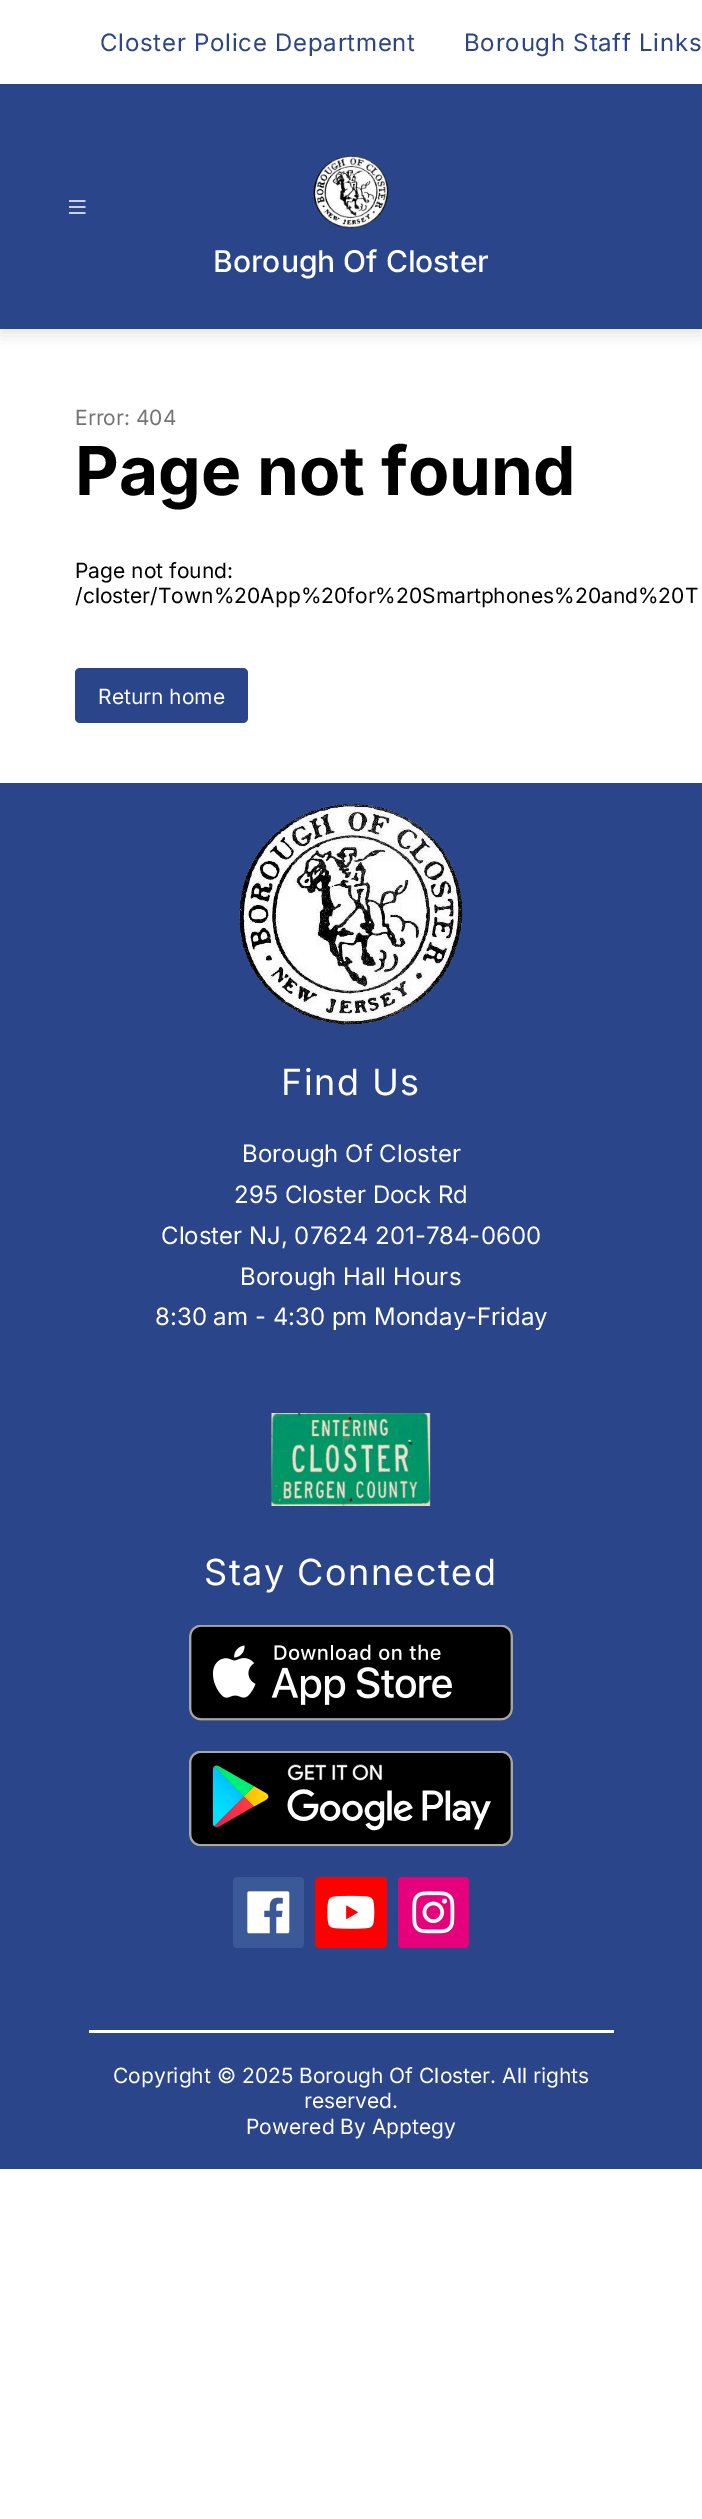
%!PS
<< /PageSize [702 2519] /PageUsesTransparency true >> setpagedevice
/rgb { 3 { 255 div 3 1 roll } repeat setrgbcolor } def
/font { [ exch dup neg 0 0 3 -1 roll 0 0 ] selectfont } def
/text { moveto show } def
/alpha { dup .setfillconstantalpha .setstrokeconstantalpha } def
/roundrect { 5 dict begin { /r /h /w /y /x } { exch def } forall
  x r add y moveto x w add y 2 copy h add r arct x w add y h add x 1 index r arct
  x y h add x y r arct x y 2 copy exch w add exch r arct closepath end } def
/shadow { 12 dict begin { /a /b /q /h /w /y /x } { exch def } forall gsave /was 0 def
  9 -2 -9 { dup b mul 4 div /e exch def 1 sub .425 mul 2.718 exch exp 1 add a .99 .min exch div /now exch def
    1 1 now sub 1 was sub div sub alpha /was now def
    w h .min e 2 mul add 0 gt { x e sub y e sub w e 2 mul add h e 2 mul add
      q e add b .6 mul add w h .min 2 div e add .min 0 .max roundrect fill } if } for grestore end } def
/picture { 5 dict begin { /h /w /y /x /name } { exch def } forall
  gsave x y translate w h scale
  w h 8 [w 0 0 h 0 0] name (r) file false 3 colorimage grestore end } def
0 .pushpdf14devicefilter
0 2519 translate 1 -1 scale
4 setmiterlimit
255 255 255 rgb
0 0 702 2519 rectfill
0 0 0 rgb
0 6 702 329 0 7.5 0.1 shadow
43 69 138 rgb
0 84 702 245 rectfill
255 255 255 rgb
0 0 702 84 rectfill
(img_01.rgb) 69 200 17 14 picture
(img_02.rgb) 313 156 76 72 picture
43 69 138 rgb
75 668 173 55 5 roundrect fill
0 783 702 1386 rectfill
(img_03.rgb) 239 804 225 221 picture
(img_04.rgb) 271 1413 160 93 picture
(img_05.rgb) 189 1625 324 96 picture
(img_06.rgb) 189 1751 324 96 picture
(img_07.rgb) 233 1877 71 71 picture
(img_08.rgb) 315 1877 72 71 picture
(img_09.rgb) 398 1877 71 71 picture
255 255 255 rgb
89 2030 525 3 rectfill
/Inter-Regular 24 font
43 69 138 rgb
100 51 moveto 0.75 0 (Closter Police Department) ashow
464 51 moveto 0.75 0 (Borough Staff Links) ashow
/Inter-Medium 30 font
255 255 255 rgb
(Borough Of Closter) 213 272 text
/Inter-Regular 21 font
116 116 116 rgb
(Error: 404) 75 425 text
/Inter-Bold 67.5 font
0 0 0 rgb
(Page not found) 75 495 text
/Inter-Regular 21 font
(Page not found:) 75 578 text
(/closter/Town%20App%20for%20Smartphones%20and%20T) 75 603 text
255 255 255 rgb
(Return home) 98 704 text
/Inter-Regular 36 font
281 1095 moveto 1.5 0 (Find Us) ashow
/Inter-Regular 24 font
(Borough Of Closter) 242 1162 text
(295 Closter Dock Rd) 234 1203 text
(Closter NJ, 07624 201-784-0600) 161 1244 text
(Borough Hall Hours) 240 1285 text
(8:30 am - 4:30 pm Monday-Friday) 155 1325 text
/Inter-Regular 36 font
204 1585 moveto 1.5 0 (Stay Connected) ashow
/Inter-Regular 21 font
(Copyright © 2025 Borough Of Closter. All rights) 113 2083 text
(reserved.) 304 2108 text
(Powered By Apptegy) 246 2134 text
.poppdf14devicefilter showpage
